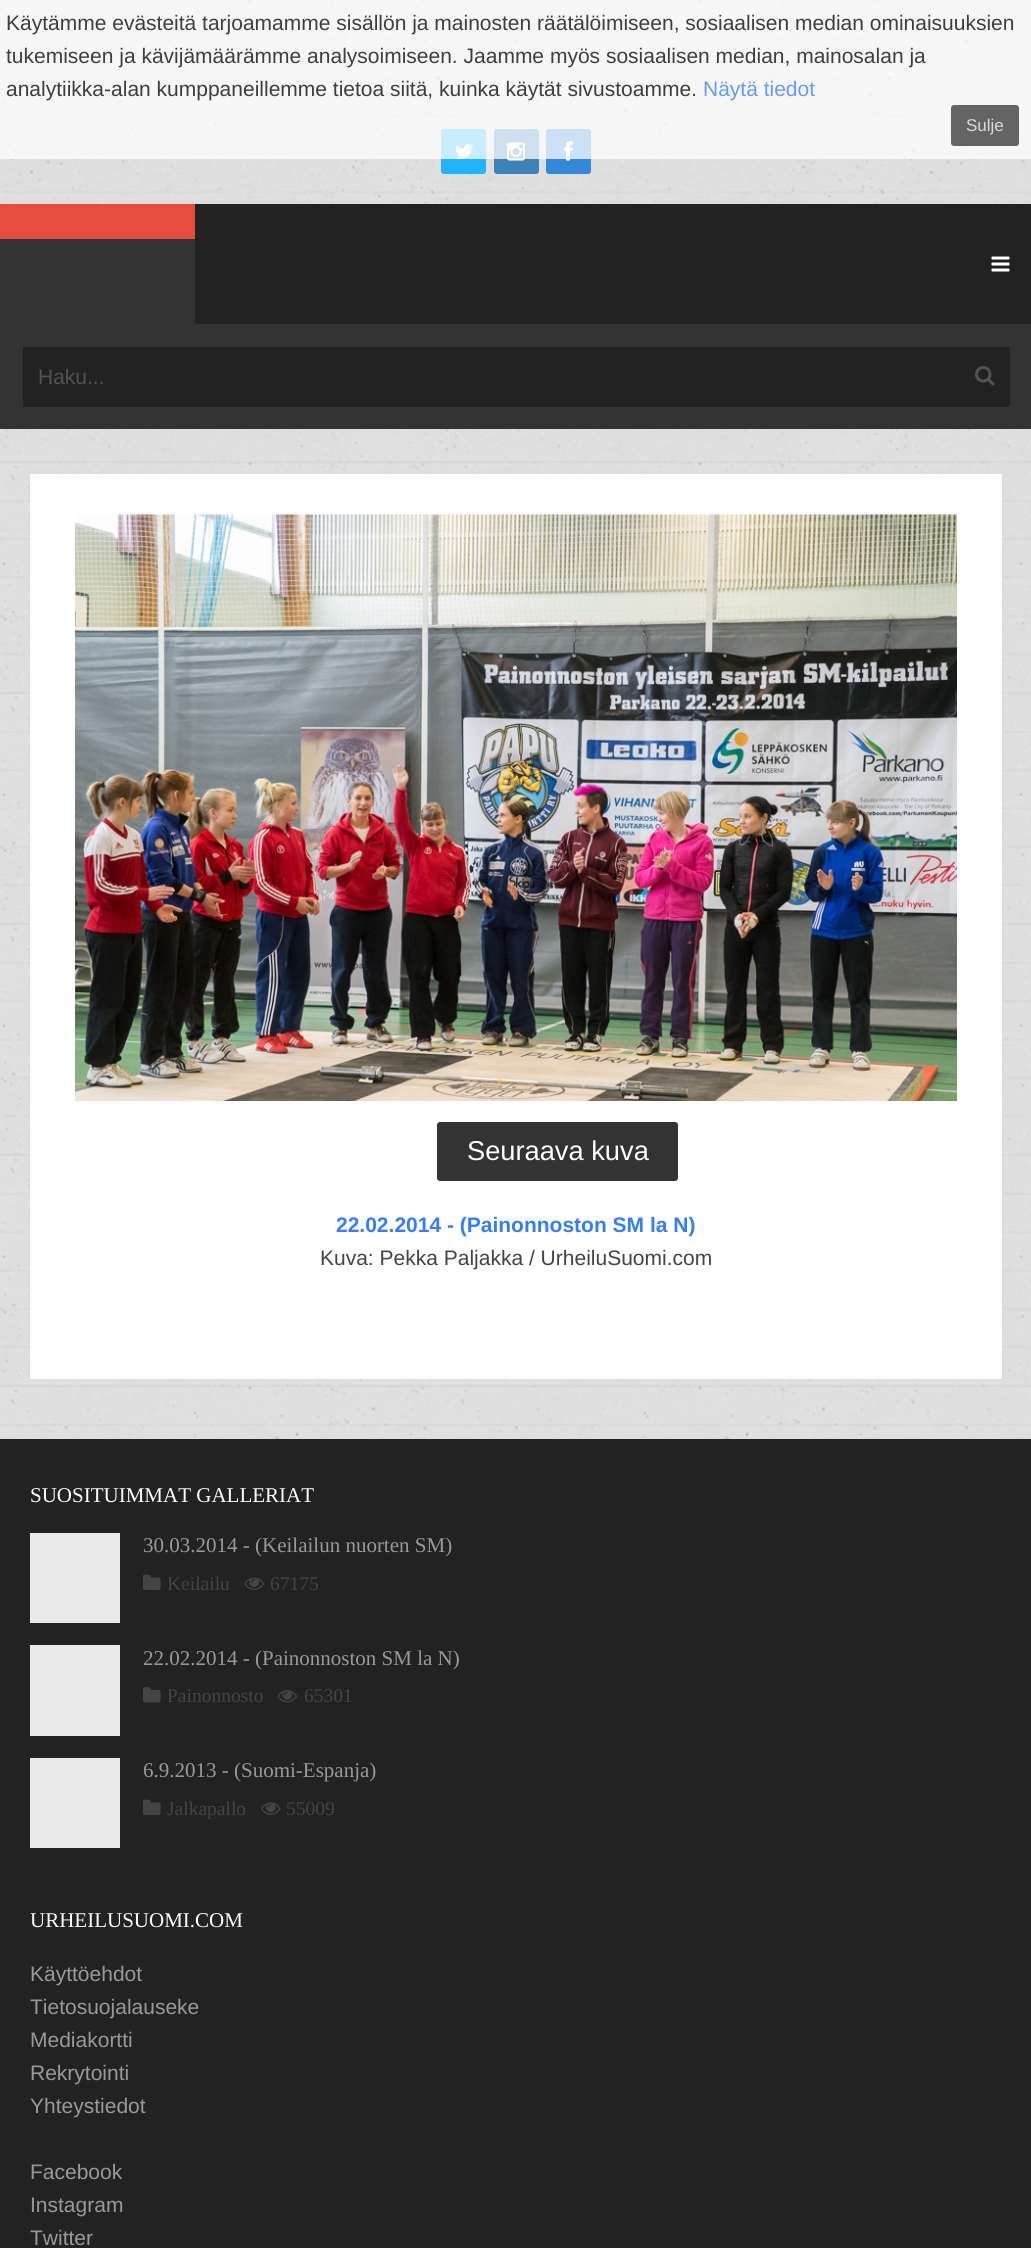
import math
import cairo

surface = cairo.ImageSurface(cairo.FORMAT_RGB24, 1031, 2248)
ctx = cairo.Context(surface)
options = cairo.FontOptions()
options.set_hint_metrics(cairo.HINT_METRICS_OFF)
options.set_hint_style(cairo.HINT_STYLE_NONE)
ctx.set_font_options(options)
ctx.set_miter_limit(4)


def round_rect(x, y, w, h, r):
    ctx.new_sub_path()
    for i, (u, v) in enumerate([(x + w - r, y + h - r), (x + r, y + h - r), (x + r, y + r), (x + w - r, y + r)]):
        ctx.arc(u, v, r, i * math.pi / 2, (i + 1) * math.pi / 2)
    ctx.close_path()


def picture(path, x, y, w, h):
    ctx.save()
    ctx.set_source_surface(cairo.ImageSurface.create_from_png(path), x, y)
    ctx.rectangle(x, y, w, h)
    ctx.fill()
    ctx.restore()


ctx.set_source_rgb(1, 1, 1)
ctx.paint()
picture("img1.png", 0, 0, 1031, 1439)
ctx.set_source_rgb(0.125, 0.714, 1)
round_rect(441, 129, 45, 45, 3)
ctx.fill()
picture("img2.png", 455, 144, 19, 15)
ctx.set_source_rgb(0.231, 0.51, 0.725)
round_rect(494, 129, 45, 45, 3)
ctx.fill()
picture("img3.png", 507, 142, 18, 19)
ctx.set_source_rgb(0.196, 0.537, 0.855)
round_rect(546, 129, 45, 45, 3)
ctx.fill()
picture("img4.png", 564, 141, 9, 20)
ctx.set_source_rgba(1, 1, 1, 0.75)
ctx.rectangle(0, 0, 1031, 159)
ctx.fill()
ctx.select_font_face("Liberation Sans")
ctx.set_font_size(21)
ctx.set_source_rgb(0.243, 0.243, 0.243)
ctx.move_to(6, 30)
ctx.show_text("Käytämme evästeitä tarjoamamme sisällön ja mainosten räätälöimiseen, sosiaalisen median ominaisuuksien")
ctx.move_to(6, 63)
ctx.show_text("tukemiseen ja kävijämäärämme analysoimiseen. Jaamme myös sosiaalisen median, mainosalan ja")
ctx.move_to(6, 96)
ctx.show_text("analytiikka-alan kumppaneillemme tietoa siitä, kuinka käytät sivustoamme.")
ctx.set_source_rgb(0.388, 0.612, 0.984)
ctx.move_to(703, 96)
ctx.show_text("Näytä tiedot")
ctx.set_source_rgba(0.2, 0.2, 0.2, 0.75)
round_rect(951, 105, 68, 41, 3)
ctx.fill()
ctx.set_font_size(17)
ctx.set_source_rgb(0.847, 0.847, 0.847)
ctx.move_to(966, 131)
ctx.show_text("Sulje")
ctx.set_source_rgb(0.2, 0.2, 0.2)
ctx.rectangle(0, 239, 1031, 190)
ctx.fill()
ctx.set_source_rgb(0.906, 0.298, 0.235)
ctx.rectangle(0, 204, 195, 35)
ctx.fill()
ctx.set_source_rgb(0.133, 0.133, 0.133)
ctx.rectangle(195, 204, 836, 120)
ctx.fill()
picture("img5.png", 991, 256, 19, 16)
ctx.rectangle(23, 347, 987, 60)
ctx.fill()
ctx.set_font_size(21)
ctx.set_source_rgb(0.322, 0.322, 0.322)
ctx.move_to(38, 384)
ctx.show_text("Haku...")
picture("img6.png", 975, 366, 20, 20)
ctx.set_source_rgb(1, 1, 1)
ctx.rectangle(30, 474, 972, 905)
ctx.fill()
picture("img7.png", 75, 514, 882, 587)
ctx.set_source_rgb(0.2, 0.2, 0.2)
round_rect(437, 1122, 241, 59, 3)
ctx.fill()
ctx.set_font_size(27.25)
ctx.set_source_rgb(1, 1, 1)
ctx.move_to(467, 1160)
ctx.show_text("Seuraava kuva")
ctx.select_font_face("Liberation Sans", cairo.FONT_SLANT_NORMAL, cairo.FONT_WEIGHT_BOLD)
ctx.set_font_size(21)
ctx.set_source_rgb(0.196, 0.494, 0.992)
ctx.move_to(336, 1232)
ctx.show_text("22.02.2014 - (Painonnoston SM la N)")
ctx.select_font_face("Liberation Sans")
ctx.set_source_rgb(0.267, 0.267, 0.267)
ctx.move_to(320, 1265)
ctx.show_text("Kuva: Pekka Paljakka / UrheiluSuomi.com")
ctx.set_source_rgb(0.133, 0.133, 0.133)
ctx.rectangle(0, 1439, 1031, 809)
ctx.fill()
ctx.select_font_face("Liberation Serif")
ctx.set_source_rgb(1, 1, 1)
ctx.move_to(30, 1502)
ctx.show_text("SUOSITUIMMAT GALLERIAT")
ctx.set_source_rgb(0.914, 0.914, 0.914)
ctx.rectangle(30, 1533, 90, 90)
ctx.fill()
ctx.set_source_rgb(0.6, 0.6, 0.6)
ctx.move_to(143, 1552)
ctx.show_text("30.03.2014 - (Keilailun nuorten SM)")
picture("img8.png", 143, 1574, 18, 16)
ctx.set_font_size(19.5)
ctx.set_source_rgb(0.267, 0.267, 0.267)
ctx.move_to(167, 1590)
ctx.show_text("Keilailu")
picture("img9.png", 244, 1577, 20, 13)
ctx.move_to(270, 1590)
ctx.show_text("67175")
ctx.set_source_rgb(0.914, 0.914, 0.914)
ctx.rectangle(30, 1645, 90, 91)
ctx.fill()
ctx.set_font_size(21)
ctx.set_source_rgb(0.6, 0.6, 0.6)
ctx.move_to(143, 1665)
ctx.show_text("22.02.2014 - (Painonnoston SM la N)")
picture("img10.png", 143, 1687, 18, 16)
ctx.set_font_size(19.5)
ctx.set_source_rgb(0.267, 0.267, 0.267)
ctx.move_to(167, 1702)
ctx.show_text("Painonnosto")
picture("img11.png", 277, 1690, 20, 13)
ctx.move_to(304, 1702)
ctx.show_text("65301")
ctx.set_source_rgb(0.914, 0.914, 0.914)
ctx.rectangle(30, 1758, 90, 90)
ctx.fill()
ctx.set_font_size(21)
ctx.set_source_rgb(0.6, 0.6, 0.6)
ctx.move_to(143, 1777)
ctx.show_text("6.9.2013 - (Suomi-Espanja)")
picture("img8.png", 143, 1799, 18, 16)
ctx.set_font_size(19.5)
ctx.set_source_rgb(0.267, 0.267, 0.267)
ctx.move_to(167, 1815)
ctx.show_text("Jalkapallo")
picture("img12.png", 261, 1802, 20, 13)
ctx.move_to(286, 1815)
ctx.show_text("55009")
ctx.set_font_size(21)
ctx.set_source_rgb(1, 1, 1)
ctx.move_to(30, 1927)
ctx.show_text("URHEILUSUOMI.COM")
ctx.select_font_face("Liberation Sans")
ctx.set_source_rgb(0.6, 0.6, 0.6)
ctx.move_to(30, 1981)
ctx.show_text("Käyttöehdot")
ctx.move_to(30, 2014)
ctx.show_text("Tietosuojalauseke")
ctx.move_to(30, 2047)
ctx.show_text("Mediakortti")
ctx.move_to(30, 2080)
ctx.show_text("Rekrytointi")
ctx.move_to(30, 2113)
ctx.show_text("Yhteystiedot")
ctx.move_to(30, 2179)
ctx.show_text("Facebook")
ctx.move_to(30, 2212)
ctx.show_text("Instagram")
ctx.move_to(30, 2245)
ctx.show_text("Twitter")
surface.write_to_png("page.png")
